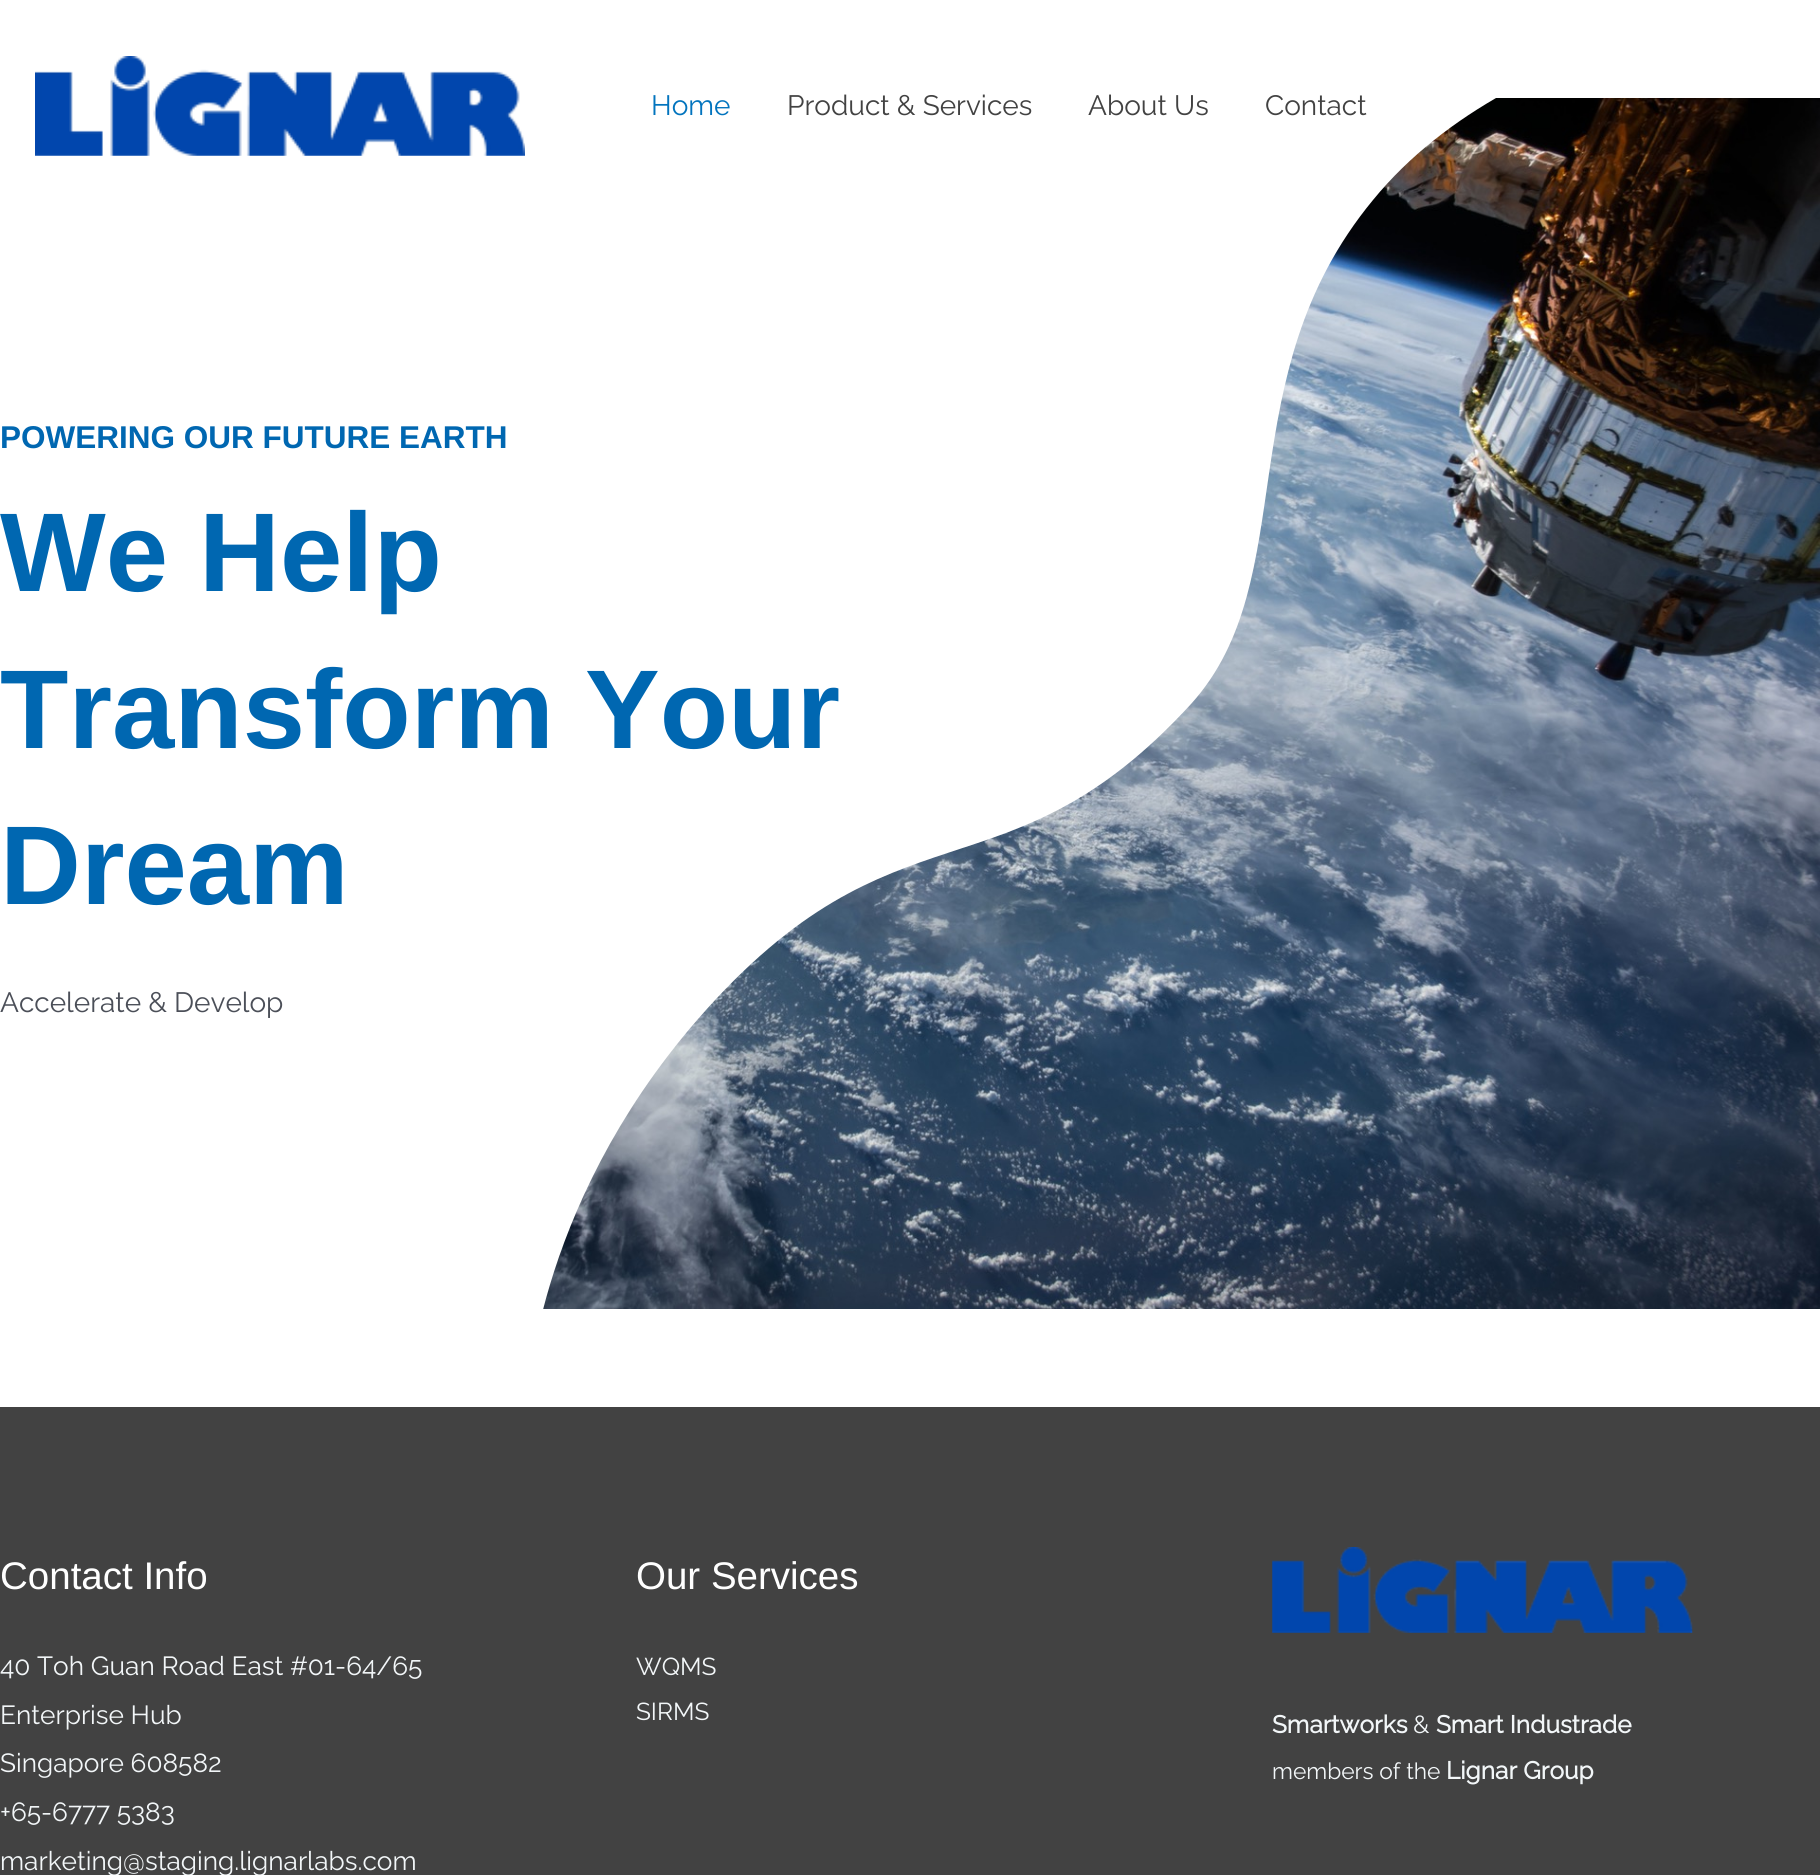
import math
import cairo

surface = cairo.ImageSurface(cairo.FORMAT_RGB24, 1820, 1875)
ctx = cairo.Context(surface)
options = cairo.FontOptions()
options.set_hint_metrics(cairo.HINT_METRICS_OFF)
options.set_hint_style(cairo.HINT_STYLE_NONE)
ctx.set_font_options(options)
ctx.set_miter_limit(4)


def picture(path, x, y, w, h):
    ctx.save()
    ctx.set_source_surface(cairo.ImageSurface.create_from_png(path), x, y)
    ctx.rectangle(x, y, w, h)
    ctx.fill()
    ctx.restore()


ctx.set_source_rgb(1, 1, 1)
ctx.paint()
picture("img2.png", 543, 98, 1277, 1211)
ctx.set_source_rgb(1, 1, 1)
ctx.set_fill_rule(cairo.FILL_RULE_EVEN_ODD)
ctx.new_path()
ctx.move_to(1820, 0)
ctx.curve_to(1820, 0, 1519, 21, 1373, 200)
ctx.curve_to(1226, 378, 1304, 579, 1191, 704)
ctx.curve_to(1004, 908, 897, 791, 698, 1019)
ctx.curve_to(531, 1211, 527, 1407, 527, 1407)
ctx.line_to(-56, 1407)
ctx.line_to(-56, 0)
ctx.close_path()
ctx.fill()
picture("img1.png", 35, 56, 490, 100)
ctx.select_font_face("Raleway Thin")
ctx.set_font_size(28)
ctx.set_source_rgb(0.008, 0.455, 0.745)
ctx.move_to(651, 115)
ctx.show_text("Home")
ctx.set_source_rgb(0.259, 0.259, 0.259)
ctx.move_to(787, 115)
ctx.show_text("Product & Services")
ctx.move_to(1088, 115)
ctx.show_text("About Us")
ctx.move_to(1265, 115)
ctx.show_text("Contact")
ctx.select_font_face("Liberation Sans", cairo.FONT_SLANT_NORMAL, cairo.FONT_WEIGHT_BOLD)
ctx.set_font_size(31.5)
ctx.set_source_rgb(0, 0.404, 0.694)
ctx.move_to(0, 448)
ctx.show_text("POWERING OUR FUTURE EARTH")
ctx.set_font_size(112)
ctx.move_to(0, 591)
ctx.show_text("We Help")
ctx.move_to(0, 748)
ctx.show_text("Transform Your")
ctx.move_to(0, 904)
ctx.show_text("Dream")
ctx.select_font_face("Raleway Thin")
ctx.set_font_size(28)
ctx.set_source_rgb(0.294, 0.31, 0.345)
ctx.move_to(0, 1012)
ctx.show_text("Accelerate & Develop")
ctx.set_source_rgb(0.259, 0.259, 0.259)
ctx.rectangle(0, 1407, 1820, 468)
ctx.fill()
ctx.select_font_face("Liberation Sans")
ctx.set_font_size(38.5)
ctx.set_source_rgb(1, 1, 1)
ctx.move_to(0, 1589)
ctx.show_text("Contact Info")
ctx.select_font_face("Raleway Thin")
ctx.set_font_size(26.25)
ctx.set_source_rgb(0.949, 0.961, 0.969)
ctx.move_to(0, 1675)
ctx.show_text("40 Toh Guan Road East #01-64/65")
ctx.move_to(0, 1724)
ctx.show_text("Enterprise Hub")
ctx.move_to(0, 1772)
ctx.show_text("Singapore 608582")
ctx.move_to(0, 1821)
ctx.show_text("+65-6777 5383")
ctx.move_to(0, 1870)
ctx.show_text("marketing@staging.lignarlabs.com")
ctx.select_font_face("Liberation Sans")
ctx.set_font_size(38.5)
ctx.set_source_rgb(1, 1, 1)
ctx.move_to(636, 1589)
ctx.show_text("Our Services")
ctx.select_font_face("Raleway Thin")
ctx.set_font_size(24.5)
ctx.set_source_rgb(0.949, 0.961, 0.969)
ctx.move_to(636, 1675)
ctx.show_text("WQMS")
ctx.move_to(636, 1720)
ctx.show_text("SIRMS")
picture("img3.png", 1272, 1547, 421, 86)
ctx.select_font_face("Raleway", cairo.FONT_SLANT_NORMAL, cairo.FONT_WEIGHT_BOLD)
ctx.move_to(1272, 1733)
ctx.show_text("Smartworks")
ctx.select_font_face("Raleway Thin")
ctx.move_to(1413, 1733)
ctx.show_text("&")
ctx.select_font_face("Raleway", cairo.FONT_SLANT_NORMAL, cairo.FONT_WEIGHT_BOLD)
ctx.move_to(1436, 1733)
ctx.show_text("Smart Industrade")
ctx.select_font_face("Raleway Thin")
ctx.set_font_size(22.75)
ctx.move_to(1272, 1779)
ctx.show_text("members of the")
ctx.select_font_face("Raleway", cairo.FONT_SLANT_NORMAL, cairo.FONT_WEIGHT_BOLD)
ctx.set_font_size(24.5)
ctx.move_to(1446, 1779)
ctx.show_text("Lignar Group")
surface.write_to_png("page.png")
